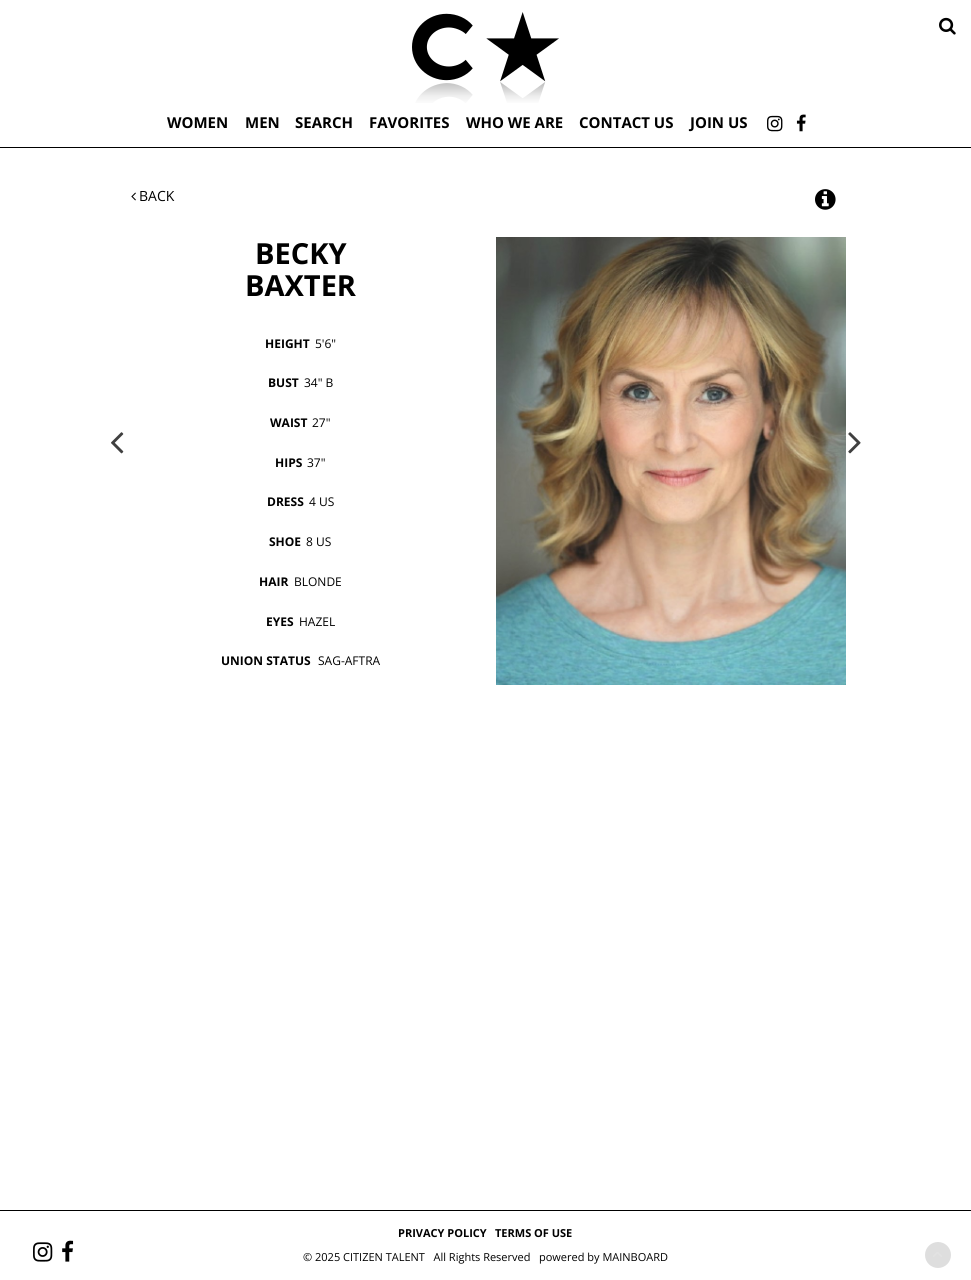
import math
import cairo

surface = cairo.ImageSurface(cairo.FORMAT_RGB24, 971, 1280)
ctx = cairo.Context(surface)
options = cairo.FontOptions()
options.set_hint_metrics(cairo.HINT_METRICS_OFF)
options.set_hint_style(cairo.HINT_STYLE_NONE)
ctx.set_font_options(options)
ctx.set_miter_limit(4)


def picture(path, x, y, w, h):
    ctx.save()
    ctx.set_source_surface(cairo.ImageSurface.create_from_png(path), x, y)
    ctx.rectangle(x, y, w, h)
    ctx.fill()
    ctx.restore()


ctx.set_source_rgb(1, 1, 1)
ctx.paint()
ctx.set_source_rgb(0, 0, 0)
ctx.rectangle(0, 147, 971, 1)
ctx.fill()
picture("img1.png", 412, 12, 147, 91)
picture("img2.png", 939, 17, 17, 18)
ctx.select_font_face("Open Sans", cairo.FONT_SLANT_NORMAL, cairo.FONT_WEIGHT_BOLD)
ctx.set_font_size(15)
ctx.move_to(167, 128)
ctx.show_text("WOMEN")
ctx.move_to(245, 128)
ctx.show_text("MEN")
ctx.move_to(295, 128)
ctx.show_text("SEARCH")
ctx.move_to(369, 128)
ctx.show_text("FAVORITES")
ctx.move_to(466, 128)
ctx.show_text("WHO WE ARE")
ctx.move_to(579, 128)
ctx.show_text("CONTACT US")
ctx.move_to(690, 128)
ctx.show_text("JOIN US")
picture("img3.png", 767, 115, 16, 17)
picture("img4.png", 796, 114, 10, 18)
picture("img5.png", 131, 192, 5, 9)
ctx.select_font_face("Open Sans")
ctx.set_font_size(14)
ctx.move_to(139, 201)
ctx.show_text("BACK")
picture("img6.png", 815, 189, 21, 21)
picture("img7.png", 111, 432, 13, 22)
ctx.select_font_face("Open Sans", cairo.FONT_SLANT_NORMAL, cairo.FONT_WEIGHT_BOLD)
ctx.set_font_size(29)
ctx.move_to(255, 264)
ctx.show_text("BECKY")
ctx.move_to(245, 296)
ctx.show_text("BAXTER")
ctx.set_font_size(12)
ctx.move_to(265, 348)
ctx.show_text("HEIGHT")
ctx.select_font_face("Open Sans")
ctx.move_to(315, 348)
ctx.show_text("5'6\"")
ctx.select_font_face("Open Sans", cairo.FONT_SLANT_NORMAL, cairo.FONT_WEIGHT_BOLD)
ctx.move_to(268, 387)
ctx.show_text("BUST")
ctx.select_font_face("Open Sans")
ctx.move_to(304, 387)
ctx.show_text("34\" B")
ctx.select_font_face("Open Sans", cairo.FONT_SLANT_NORMAL, cairo.FONT_WEIGHT_BOLD)
ctx.move_to(270, 427)
ctx.show_text("WAIST")
ctx.select_font_face("Open Sans")
ctx.move_to(312, 427)
ctx.show_text("27\"")
ctx.select_font_face("Open Sans", cairo.FONT_SLANT_NORMAL, cairo.FONT_WEIGHT_BOLD)
ctx.move_to(275, 467)
ctx.show_text("HIPS")
ctx.select_font_face("Open Sans")
ctx.move_to(307, 467)
ctx.show_text("37\"")
ctx.select_font_face("Open Sans", cairo.FONT_SLANT_NORMAL, cairo.FONT_WEIGHT_BOLD)
ctx.move_to(267, 506)
ctx.show_text("DRESS")
ctx.select_font_face("Open Sans")
ctx.move_to(309, 506)
ctx.show_text("4 US")
ctx.select_font_face("Open Sans", cairo.FONT_SLANT_NORMAL, cairo.FONT_WEIGHT_BOLD)
ctx.move_to(269, 546)
ctx.show_text("SHOE")
ctx.select_font_face("Open Sans")
ctx.move_to(306, 546)
ctx.show_text("8 US")
ctx.select_font_face("Open Sans", cairo.FONT_SLANT_NORMAL, cairo.FONT_WEIGHT_BOLD)
ctx.move_to(259, 586)
ctx.show_text("HAIR")
ctx.select_font_face("Open Sans")
ctx.move_to(294, 586)
ctx.show_text("BLONDE")
ctx.select_font_face("Open Sans", cairo.FONT_SLANT_NORMAL, cairo.FONT_WEIGHT_BOLD)
ctx.move_to(266, 626)
ctx.show_text("EYES")
ctx.select_font_face("Open Sans")
ctx.move_to(299, 626)
ctx.show_text("HAZEL")
ctx.select_font_face("Open Sans", cairo.FONT_SLANT_NORMAL, cairo.FONT_WEIGHT_BOLD)
ctx.move_to(221, 665)
ctx.show_text("UNION STATUS")
ctx.select_font_face("Open Sans")
ctx.move_to(318, 665)
ctx.show_text("SAG-AFTRA")
picture("img8.png", 496, 237, 350, 448)
picture("img9.png", 848, 432, 13, 22)
ctx.rectangle(0, 1210, 971, 1)
ctx.fill()
ctx.select_font_face("Open Sans", cairo.FONT_SLANT_NORMAL, cairo.FONT_WEIGHT_BOLD)
ctx.set_font_size(11)
ctx.move_to(398, 1237)
ctx.show_text("PRIVACY POLICY")
ctx.move_to(495, 1237)
ctx.show_text("TERMS OF USE")
picture("img10.png", 33, 1242, 20, 20)
picture("img11.png", 62, 1240, 12, 22)
ctx.select_font_face("Open Sans")
ctx.move_to(303, 1261)
ctx.show_text("© 2025 CITIZEN TALENT   All Rights Reserved")
ctx.move_to(539, 1261)
ctx.show_text("powered by MAINBOARD")
ctx.set_source_rgb(0.871, 0.871, 0.871)
ctx.new_path()
ctx.arc(938, 1255, 13, 0, 2 * math.pi)
ctx.fill()
picture("img12.png", 933, 1252, 9, 5)
surface.write_to_png("page.png")
